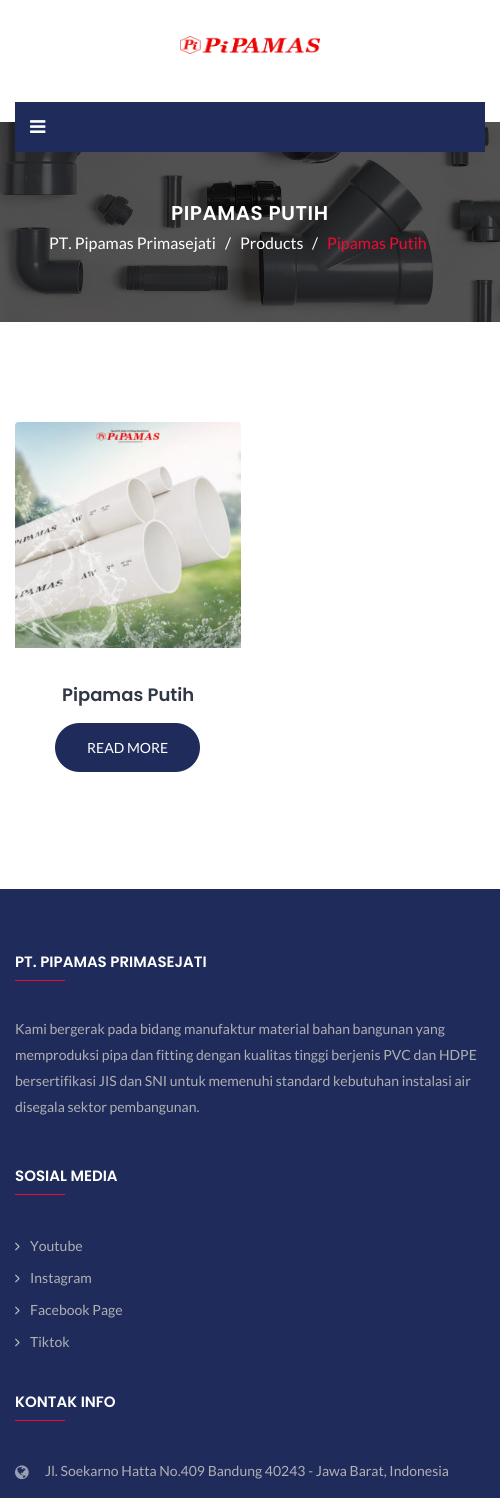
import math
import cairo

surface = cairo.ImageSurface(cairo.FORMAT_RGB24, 500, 1498)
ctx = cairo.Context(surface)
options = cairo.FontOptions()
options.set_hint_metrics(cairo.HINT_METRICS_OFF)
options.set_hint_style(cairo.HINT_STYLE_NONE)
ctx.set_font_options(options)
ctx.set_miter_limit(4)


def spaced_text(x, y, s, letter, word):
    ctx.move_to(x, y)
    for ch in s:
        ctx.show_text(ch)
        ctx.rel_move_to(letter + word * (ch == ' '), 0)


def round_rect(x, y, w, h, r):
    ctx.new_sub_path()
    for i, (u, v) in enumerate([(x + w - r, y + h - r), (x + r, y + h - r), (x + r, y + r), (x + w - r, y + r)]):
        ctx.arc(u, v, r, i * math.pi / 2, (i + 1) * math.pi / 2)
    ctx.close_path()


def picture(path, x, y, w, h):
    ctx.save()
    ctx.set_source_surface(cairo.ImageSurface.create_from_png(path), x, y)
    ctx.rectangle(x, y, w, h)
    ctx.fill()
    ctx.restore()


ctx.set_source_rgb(1, 1, 1)
ctx.paint()
picture("img1.png", 180, 36, 140, 18)
picture("img3.png", 0, 122, 500, 200)
ctx.set_source_rgb(0.122, 0.169, 0.357)
ctx.rectangle(15, 102, 470, 50)
ctx.fill()
picture("img2.png", 30, 120, 16, 13)
ctx.select_font_face("Poppins SemiBold")
ctx.set_font_size(20)
ctx.set_source_rgb(1, 1, 1)
spaced_text(171, 220, "PIPAMAS PUTIH", 0.5, 0)
ctx.select_font_face("Lato")
ctx.set_font_size(16)
ctx.move_to(49, 249)
ctx.show_text("PT. Pipamas Primasejati")
ctx.move_to(225, 249)
ctx.show_text("/")
ctx.move_to(240, 249)
ctx.show_text("Products")
ctx.move_to(312, 249)
ctx.show_text("/")
ctx.set_source_rgb(0.929, 0.043, 0.192)
ctx.move_to(327, 249)
ctx.show_text("Pipamas Putih")
picture("img4.png", 15, 422, 226, 226)
ctx.select_font_face("Poppins SemiBold")
ctx.set_font_size(18)
ctx.set_source_rgb(0.188, 0.216, 0.271)
ctx.move_to(62, 701)
ctx.show_text("Pipamas Putih")
ctx.set_source_rgb(0.122, 0.169, 0.357)
round_rect(56, 724, 143, 47, 23.5)
ctx.fill_preserve()
ctx.stroke()
ctx.select_font_face("Lato")
ctx.set_font_size(14)
ctx.set_source_rgb(1, 1, 1)
ctx.move_to(87, 753)
ctx.show_text("READ MORE")
ctx.set_source_rgb(0.122, 0.169, 0.357)
ctx.rectangle(0, 889, 500, 609)
ctx.fill()
ctx.select_font_face("Poppins SemiBold")
ctx.set_font_size(15)
ctx.set_source_rgb(1, 1, 1)
ctx.move_to(15, 967)
ctx.show_text("PT. PIPAMAS PRIMASEJATI")
ctx.set_source_rgb(0.929, 0.043, 0.192)
ctx.rectangle(15, 980, 50, 1)
ctx.fill()
ctx.select_font_face("Lato")
ctx.set_font_size(14)
ctx.set_source_rgb(0.686, 0.69, 0.698)
ctx.move_to(15, 1034)
ctx.show_text("Kami bergerak pada bidang manufaktur material bahan bangunan yang")
ctx.move_to(15, 1060)
ctx.show_text("memproduksi pipa dan fitting dengan kualitas tinggi berjenis PVC dan HDPE")
ctx.move_to(15, 1086)
ctx.show_text("bersertifikasi JIS dan SNI untuk memenuhi standard kebutuhan instalasi air")
ctx.move_to(15, 1112)
ctx.show_text("disegala sektor pembangunan.")
ctx.select_font_face("Poppins SemiBold")
ctx.set_font_size(15)
ctx.set_source_rgb(1, 1, 1)
ctx.move_to(15, 1181)
ctx.show_text("SOSIAL MEDIA")
ctx.set_source_rgb(0.929, 0.043, 0.192)
ctx.rectangle(15, 1194, 50, 1)
ctx.fill()
picture("img5.png", 15, 1242, 5, 9)
ctx.select_font_face("Lato")
ctx.set_font_size(14)
ctx.set_source_rgb(0.686, 0.69, 0.698)
ctx.move_to(30, 1251)
ctx.show_text("Youtube")
picture("img5.png", 15, 1274, 5, 9)
ctx.move_to(30, 1283)
ctx.show_text("Instagram")
picture("img5.png", 15, 1306, 5, 9)
ctx.move_to(30, 1315)
ctx.show_text("Facebook Page")
picture("img5.png", 15, 1338, 5, 9)
ctx.move_to(30, 1347)
ctx.show_text("Tiktok")
ctx.select_font_face("Poppins SemiBold")
ctx.set_font_size(15)
ctx.set_source_rgb(1, 1, 1)
ctx.move_to(15, 1407)
ctx.show_text("KONTAK INFO")
ctx.set_source_rgb(0.929, 0.043, 0.192)
ctx.rectangle(15, 1420, 50, 1)
ctx.fill()
picture("img6.png", 15, 1465, 14, 15)
ctx.select_font_face("Lato")
ctx.set_font_size(14)
ctx.set_source_rgb(0.686, 0.69, 0.698)
ctx.move_to(45, 1476)
ctx.show_text("Jl. Soekarno Hatta No.409 Bandung 40243 - Jawa Barat, Indonesia")
surface.write_to_png("page.png")
